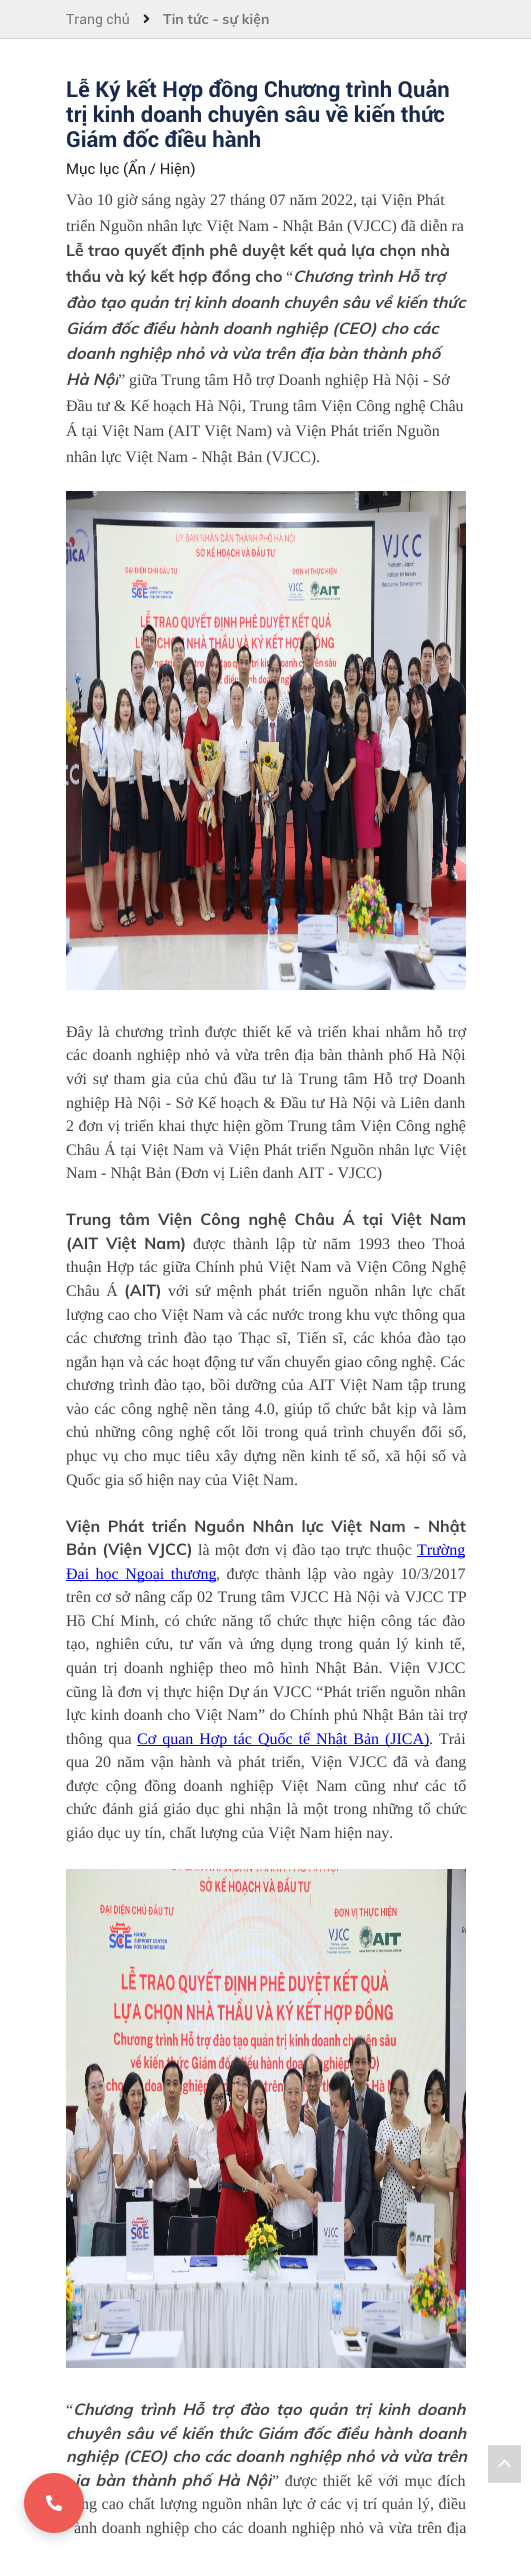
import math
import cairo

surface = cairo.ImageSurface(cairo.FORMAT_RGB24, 531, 2553)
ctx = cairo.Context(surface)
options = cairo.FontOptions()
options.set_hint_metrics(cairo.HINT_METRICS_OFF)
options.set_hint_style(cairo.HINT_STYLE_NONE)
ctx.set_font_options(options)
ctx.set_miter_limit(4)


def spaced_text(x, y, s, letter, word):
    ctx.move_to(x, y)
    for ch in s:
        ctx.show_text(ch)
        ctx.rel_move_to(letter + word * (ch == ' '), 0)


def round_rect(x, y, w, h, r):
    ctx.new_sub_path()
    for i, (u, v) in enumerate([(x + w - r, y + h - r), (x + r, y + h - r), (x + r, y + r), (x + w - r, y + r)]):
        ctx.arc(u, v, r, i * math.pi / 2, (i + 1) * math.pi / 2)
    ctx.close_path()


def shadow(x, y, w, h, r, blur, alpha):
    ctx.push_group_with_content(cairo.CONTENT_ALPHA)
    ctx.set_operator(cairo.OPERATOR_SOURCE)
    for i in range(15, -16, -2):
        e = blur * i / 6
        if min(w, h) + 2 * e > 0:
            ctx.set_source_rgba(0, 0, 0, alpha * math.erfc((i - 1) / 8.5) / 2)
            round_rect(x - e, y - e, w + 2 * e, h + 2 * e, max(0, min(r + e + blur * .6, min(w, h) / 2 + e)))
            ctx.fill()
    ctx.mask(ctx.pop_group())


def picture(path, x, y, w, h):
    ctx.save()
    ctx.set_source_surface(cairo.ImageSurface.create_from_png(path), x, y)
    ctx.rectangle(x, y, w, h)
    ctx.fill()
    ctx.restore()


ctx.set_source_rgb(1, 1, 1)
ctx.paint()
ctx.set_source_rgb(0.937, 0.937, 0.941)
ctx.rectangle(0, 0, 531, 38)
ctx.fill()
ctx.set_source_rgb(0.82, 0.82, 0.82)
ctx.rectangle(0, 38, 531, 1)
ctx.fill()
ctx.select_font_face("Roboto")
ctx.set_font_size(14)
ctx.set_source_rgb(0.463, 0.463, 0.471)
ctx.move_to(66, 24)
ctx.show_text("Trang chủ")
picture("img1.png", 143, 14, 7, 10)
ctx.select_font_face("Muli", cairo.FONT_SLANT_NORMAL, cairo.FONT_WEIGHT_BOLD)
ctx.move_to(163, 24)
ctx.show_text("Tin tức - sự kiện")
ctx.set_source_rgb(0, 0, 0)
shadow(24, 2477, 60, 60, 30, 6, 0.15)
ctx.select_font_face("Muli", cairo.FONT_SLANT_ITALIC, cairo.FONT_WEIGHT_BOLD)
ctx.set_font_size(16)
ctx.set_source_rgb(0.255, 0.251, 0.259)
spaced_text(75, 2486, "ịa bàn thành phố Hà Nội", 0, 1.75)
ctx.select_font_face("Liberation Serif")
spaced_text(81, 2509, "ng cao chất lượng nguồn nhân lực ở các vị trí quản lý, điều", 0, 0.6)
spaced_text(74, 2533, "ành doanh nghiệp cho các doanh nghiệp nhỏ và vừa trên địa", 0, 0.75)
ctx.set_source_rgb(0.945, 0.357, 0.333)
ctx.new_path()
ctx.arc(54, 2503, 30, 0, 2 * math.pi)
ctx.fill()
picture("img2.png", 46, 2495, 16, 16)
ctx.select_font_face("Roboto", cairo.FONT_SLANT_NORMAL, cairo.FONT_WEIGHT_BOLD)
ctx.set_font_size(22)
ctx.set_source_rgb(0.098, 0.169, 0.302)
ctx.move_to(66, 97)
ctx.show_text("Lễ Ký kết Hợp đồng Chương trình Quản")
ctx.move_to(66, 122)
ctx.show_text("trị kinh doanh chuyên sâu về kiến thức")
ctx.move_to(66, 147)
ctx.show_text("Giám đốc điều hành")
ctx.select_font_face("Roboto")
ctx.set_font_size(15)
ctx.set_source_rgb(0.133, 0.133, 0.133)
ctx.move_to(66, 174)
ctx.show_text("Mục lục (Ẩn / Hiện)")
ctx.select_font_face("Liberation Serif")
ctx.set_font_size(16)
ctx.set_source_rgb(0.255, 0.251, 0.259)
ctx.move_to(66, 205)
ctx.show_text("Vào 10 giờ sáng ngày 27 tháng 07 năm 2022, tại Viện Phát")
ctx.move_to(66, 231)
ctx.show_text("triển Nguồn nhân lực Việt Nam - Nhật Bản (VJCC) đã diễn ra")
ctx.select_font_face("Muli", cairo.FONT_SLANT_NORMAL, cairo.FONT_WEIGHT_BOLD)
ctx.move_to(66, 256)
ctx.show_text("Lễ trao quyết định phê duyệt kết quả lựa chọn nhà")
ctx.move_to(66, 282)
ctx.show_text("thầu và ký kết hợp đồng cho")
ctx.select_font_face("Liberation Serif")
ctx.move_to(286, 282)
ctx.show_text("“")
ctx.select_font_face("Muli", cairo.FONT_SLANT_ITALIC, cairo.FONT_WEIGHT_BOLD)
ctx.move_to(293, 282)
ctx.show_text("Chương trình Hỗ trợ")
ctx.move_to(66, 308)
ctx.show_text("đào tạo quản trị kinh doanh chuyên sâu về kiến thức")
ctx.move_to(66, 334)
ctx.show_text("Giám đốc điều hành doanh nghiệp (CEO) cho các")
ctx.move_to(66, 359)
ctx.show_text("doanh nghiệp nhỏ và vừa trên địa bàn thành phố")
ctx.move_to(66, 385)
ctx.show_text("Hà Nội")
ctx.set_source_rgb(1, 1, 1)
ctx.rectangle(118, 373, 2, 7)
ctx.fill()
ctx.select_font_face("Liberation Serif")
ctx.set_source_rgb(0.255, 0.251, 0.259)
ctx.move_to(118, 385)
ctx.show_text("” giữa Trung tâm Hỗ trợ Doanh nghiệp Hà Nội - Sở")
ctx.move_to(66, 411)
ctx.show_text("Đầu tư & Kế hoạch Hà Nội, Trung tâm Viện Công nghệ Châu")
ctx.move_to(66, 436)
ctx.show_text("Á tại Việt Nam (AIT Việt Nam) và Viện Phát triển Nguồn")
ctx.move_to(66, 462)
ctx.show_text("nhân lực Việt Nam - Nhật Bản (VJCC).")
picture("img3.png", 66, 491, 400, 499)
spaced_text(66, 1037, "Đây là chương trình được thiết kế và triển khai nhằm hỗ trợ", 0, 1.5)
spaced_text(66, 1060, "các doanh nghiệp nhỏ và vừa trên địa bàn thành phố Hà Nội", 0, 1.25)
spaced_text(66, 1084, "với sự tham gia của chủ đầu tư là Trung tâm Hỗ trợ Doanh", 0, 1.8)
spaced_text(66, 1108, "nghiệp Hà Nội - Sở Kế hoạch & Đầu tư Hà Nội và Liên danh", 0, 0.5)
spaced_text(66, 1131, "2 đơn vị triển khai thực hiện gồm Trung tâm Viện Công nghệ", 0, 0.5)
spaced_text(66, 1155, "Châu Á tại Việt Nam và Viện Phát triển Nguồn nhân lực Việt", 0, 0.5)
ctx.move_to(66, 1178)
ctx.show_text("Nam - Nhật Bản (Đơn vị Liên danh AIT - VJCC)")
ctx.select_font_face("Muli", cairo.FONT_SLANT_NORMAL, cairo.FONT_WEIGHT_BOLD)
spaced_text(66, 1225, "Trung tâm Viện Công nghệ Châu Á tại Việt Nam", 0, 3.75)
spaced_text(66, 1249, "(AIT Việt Nam)", 0, 3.4)
ctx.select_font_face("Liberation Serif")
spaced_text(193, 1249, "được thành lập từ năm 1993 theo Thoả", 0, 3.4)
spaced_text(66, 1272, "thuận Hợp tác giữa Chính phủ Việt Nam và Viện Công Nghệ", 0, 0.75)
spaced_text(66, 1296, "Châu Á", 0, 2.4)
ctx.select_font_face("Muli", cairo.FONT_SLANT_NORMAL, cairo.FONT_WEIGHT_BOLD)
ctx.move_to(124, 1296)
ctx.show_text("(AIT)")
ctx.select_font_face("Liberation Serif")
spaced_text(168, 1296, "với sứ mệnh phát triển nguồn nhân lực chất", 0, 2.4)
ctx.move_to(66, 1320)
ctx.show_text("lượng cao cho Việt Nam và các nước trong khu vực thông qua")
spaced_text(66, 1343, "các chương trình đào tạo Thạc sĩ, Tiến sĩ, các khóa đào tạo", 0, 2)
ctx.move_to(66, 1367)
ctx.show_text("ngắn hạn và các hoạt động tư vấn chuyển giao công nghệ. Các")
spaced_text(66, 1390, "chương trình đào tạo, bồi dưỡng của AIT Việt Nam tập trung", 0, 0.75)
spaced_text(66, 1414, "vào các công nghệ nền tảng 4.0, giúp tổ chức bắt kịp và làm", 0, 1.25)
spaced_text(66, 1437, "chủ những công nghệ cốt lõi trong quá trình chuyển đổi số,", 0, 2)
spaced_text(66, 1461, "phục vụ cho mục tiêu xây dựng nền kinh tế số, xã hội số và", 0, 1.5)
ctx.move_to(66, 1485)
ctx.show_text("Quốc gia số hiện nay của Việt Nam.")
ctx.select_font_face("Muli", cairo.FONT_SLANT_NORMAL, cairo.FONT_WEIGHT_BOLD)
spaced_text(66, 1532, "Viện Phát triển Nguồn Nhân lực Việt Nam - Nhật", 0, 3.25)
spaced_text(66, 1555, "Bản (Viện VJCC)", 0, 1.25)
ctx.select_font_face("Liberation Serif")
spaced_text(198, 1555, "là một đơn vị đào tạo trực thuộc", 0, 1.25)
ctx.set_source_rgb(0, 0, 1)
ctx.rectangle(417, 1556, 48, 1)
ctx.fill()
ctx.move_to(417, 1555)
ctx.show_text("Trường")
ctx.rectangle(66, 1580, 150, 1)
ctx.fill()
spaced_text(66, 1579, "Đại học Ngoại thương", 0, 2.5)
ctx.set_source_rgb(0.255, 0.251, 0.259)
spaced_text(216, 1579, ", được thành lập vào ngày 10/3/2017", 0, 2.5)
spaced_text(66, 1602, "trên cơ sở nâng cấp 02 Trung tâm VJCC Hà Nội và VJCC TP", 0, 0.5)
spaced_text(66, 1626, "Hồ Chí Minh, có chức năng tổ chức thực hiện công tác đào", 0, 1.75)
spaced_text(66, 1649, "tạo, nghiên cứu, tư vấn và ứng dụng trong quản lý kinh tế,", 0, 2.25)
spaced_text(66, 1673, "quản trị doanh nghiệp theo mô hình Nhật Bản. Viện VJCC", 0, 2.4)
spaced_text(66, 1697, "cũng là đơn vị thực hiện Dự án VJCC “Phát triển nguồn nhân", 0, 0.5)
spaced_text(66, 1720, "lực kinh doanh cho Việt Nam” do Chính phủ Nhật Bản tài trợ", 0, 0.5)
spaced_text(66, 1744, "thông qua", 0, 2)
ctx.set_source_rgb(0, 0, 1)
ctx.rectangle(137, 1745, 292, 1)
ctx.fill()
spaced_text(137, 1744, "Cơ quan Hợp tác Quốc tế Nhật Bản (JICA)", 0, 2)
ctx.set_source_rgb(0.255, 0.251, 0.259)
spaced_text(429, 1744, ". Trải", 0, 2)
spaced_text(66, 1767, "qua 20 năm vận hành và phát triển, Viện VJCC đã và đang", 0, 2)
spaced_text(66, 1791, "được cộng đồng doanh nghiệp Việt Nam cũng như các tổ", 0, 3.4)
spaced_text(66, 1814, "chức đánh giá giáo dục ghi nhận là một trong những tổ chức", 0, 1.25)
ctx.move_to(66, 1838)
ctx.show_text("giáo dục uy tín, chất lượng của Việt Nam hiện nay.")
picture("img4.png", 66, 1869, 400, 499)
ctx.move_to(66, 2415)
ctx.show_text("“")
ctx.select_font_face("Muli", cairo.FONT_SLANT_ITALIC, cairo.FONT_WEIGHT_BOLD)
spaced_text(73, 2415, "Chương trình Hỗ trợ đào", 0, 2.5)
spaced_text(276, 2415, "tạo quản trị kinh doanh", 0, 2.5)
spaced_text(66, 2439, "chuyên sâu về kiến thức Giám đốc điều hành doanh", 0, 1)
spaced_text(66, 2462, "nghiệp (CEO) cho các doanh nghiệp nhỏ và vừa trên", 0, 0.5)
ctx.set_source_rgb(1, 1, 1)
ctx.rectangle(272, 2474, 2, 7)
ctx.fill()
ctx.select_font_face("Liberation Serif")
ctx.set_source_rgb(0.255, 0.251, 0.259)
spaced_text(272, 2486, "” được thiết kế với mục đích", 0, 1.75)
ctx.set_source_rgb(0.839, 0.839, 0.839)
ctx.rectangle(488, 2445, 33, 38)
ctx.fill()
picture("img5.png", 498, 2459, 13, 9)
surface.write_to_png("page.png")
